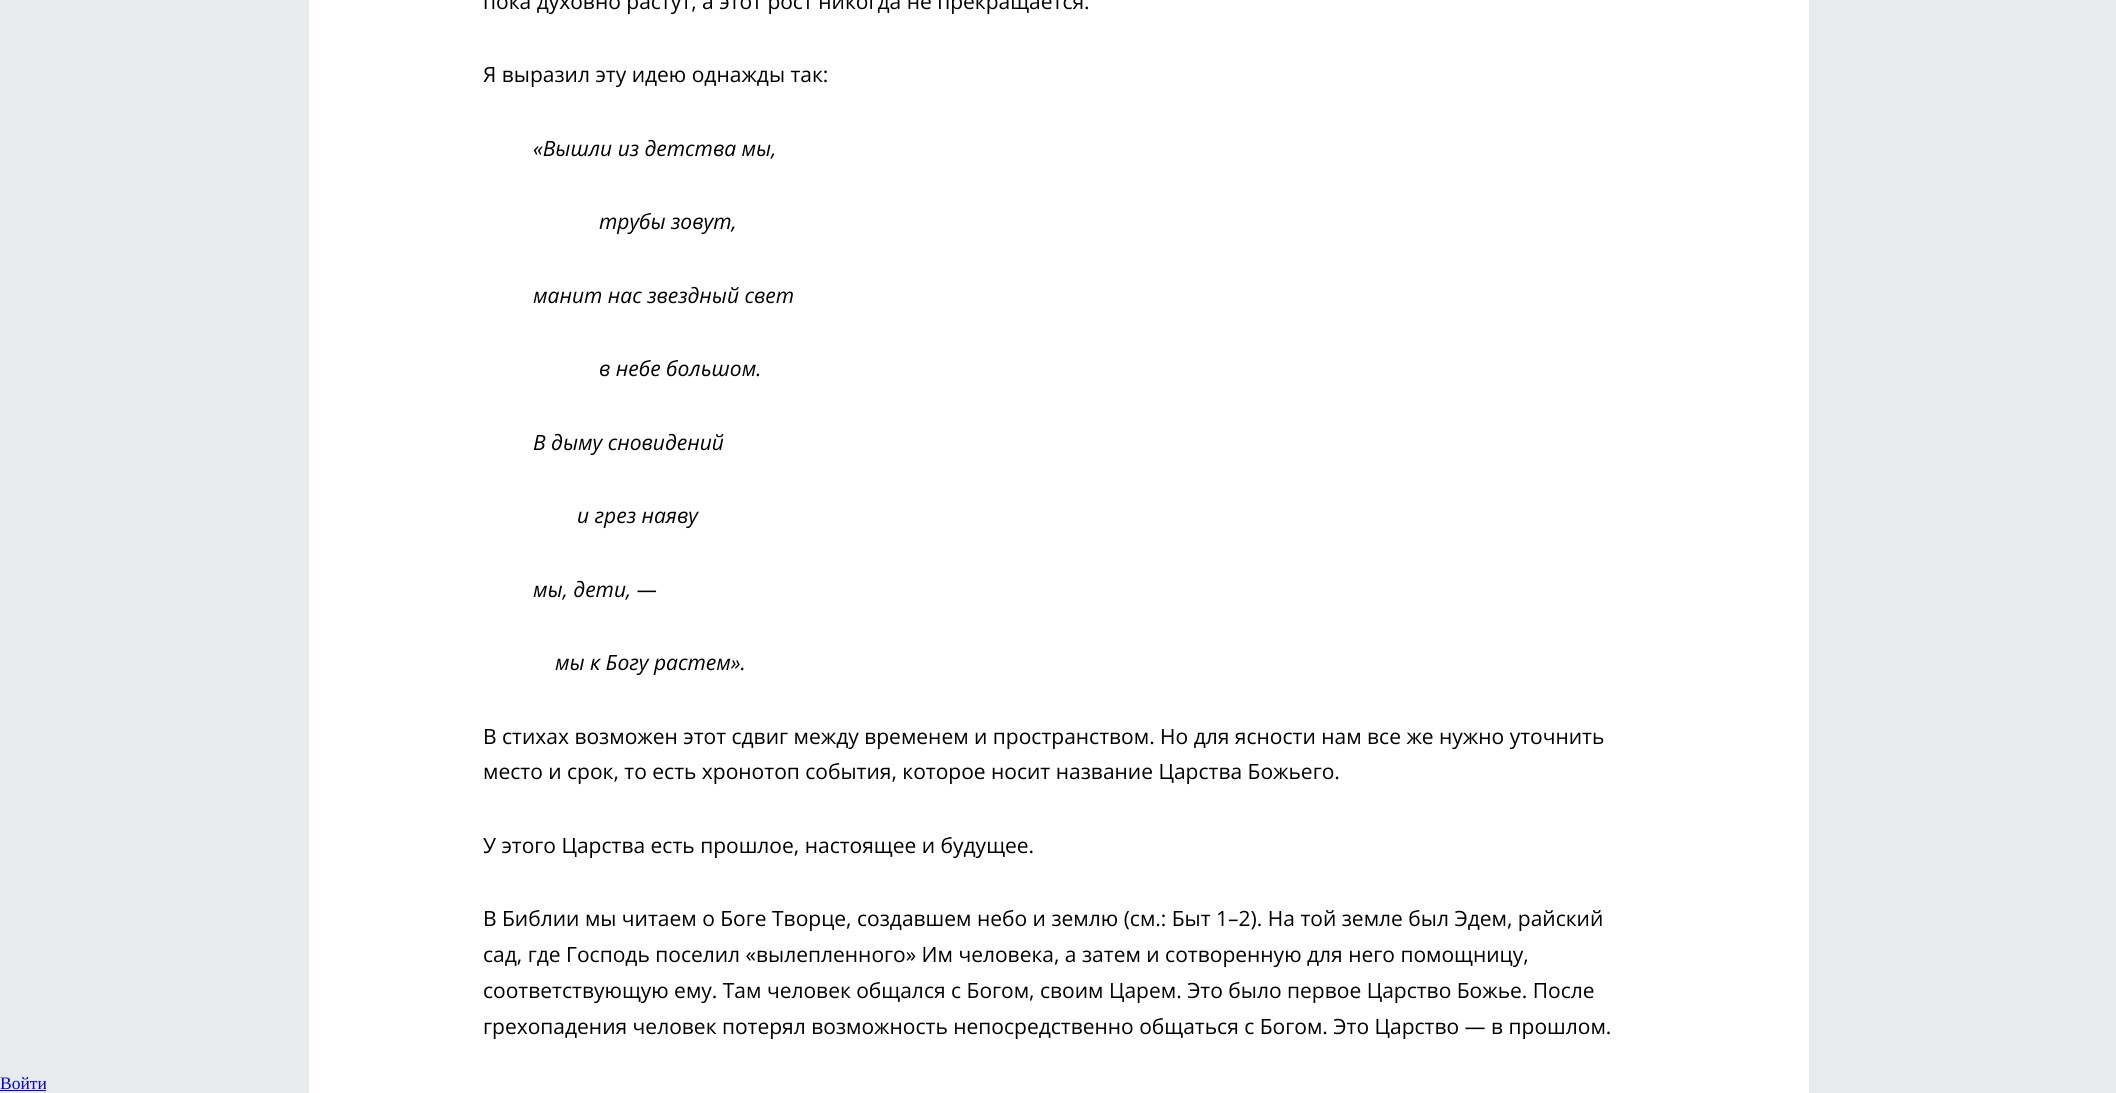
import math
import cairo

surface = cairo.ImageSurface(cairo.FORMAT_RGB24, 2116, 1093)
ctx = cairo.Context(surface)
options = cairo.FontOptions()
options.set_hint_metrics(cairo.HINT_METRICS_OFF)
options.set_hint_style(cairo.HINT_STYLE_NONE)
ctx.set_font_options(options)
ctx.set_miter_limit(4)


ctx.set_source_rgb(0.91, 0.918, 0.925)
ctx.paint()
ctx.set_source_rgb(1, 1, 1)
ctx.rectangle(309, 0, 1500, 1093)
ctx.fill()
ctx.select_font_face("Open Sans")
ctx.set_font_size(21)
ctx.set_source_rgb(0, 0, 0)
ctx.move_to(483, 9)
ctx.show_text("пока духовно растут, а этот рост никогда не прекращается.")
ctx.move_to(483, 82)
ctx.show_text("Я выразил эту идею однажды так:")
ctx.select_font_face("Open Sans", cairo.FONT_SLANT_ITALIC)
ctx.move_to(533, 156)
ctx.show_text("«Вышли из детства мы,")
ctx.move_to(599, 229)
ctx.show_text("трубы зовут,")
ctx.move_to(533, 303)
ctx.show_text("манит нас звездный свет")
ctx.move_to(599, 376)
ctx.show_text("в небе большом.")
ctx.move_to(533, 450)
ctx.show_text("В дыму сновидений")
ctx.move_to(577, 523)
ctx.show_text("и грез наяву")
ctx.move_to(533, 597)
ctx.show_text("мы, дети, —")
ctx.move_to(555, 670)
ctx.show_text("мы к Богу растем».")
ctx.select_font_face("Open Sans")
ctx.move_to(483, 744)
ctx.show_text("В стихах возможен этот сдвиг между временем и пространством. Но для ясности нам все же нужно уточнить")
ctx.move_to(483, 779)
ctx.show_text("место и срок, то есть хронотоп события, которое носит название Царства Божьего.")
ctx.move_to(483, 853)
ctx.show_text("У этого Царства есть прошлое, настоящее и будущее.")
ctx.move_to(483, 926)
ctx.show_text("В Библии мы читаем о Боге Творце, создавшем небо и землю (см.: Быт 1–2). На той земле был Эдем, райский")
ctx.move_to(483, 962)
ctx.show_text("сад, где Господь поселил «вылепленного» Им человека, а затем и сотворенную для него помощницу,")
ctx.move_to(483, 998)
ctx.show_text("соответствующую ему. Там человек общался с Богом, своим Царем. Это было первое Царство Божье. После")
ctx.move_to(483, 1034)
ctx.show_text("грехопадения человек потерял возможность непосредственно общаться с Богом. Это Царство — в прошлом.")
ctx.select_font_face("Liberation Serif")
ctx.set_font_size(17.5)
ctx.set_source_rgb(0, 0, 0.933)
ctx.move_to(0, 1089)
ctx.show_text("Войти")
ctx.rectangle(0, 1090, 46, 1)
ctx.fill()
surface.write_to_png("page.png")
